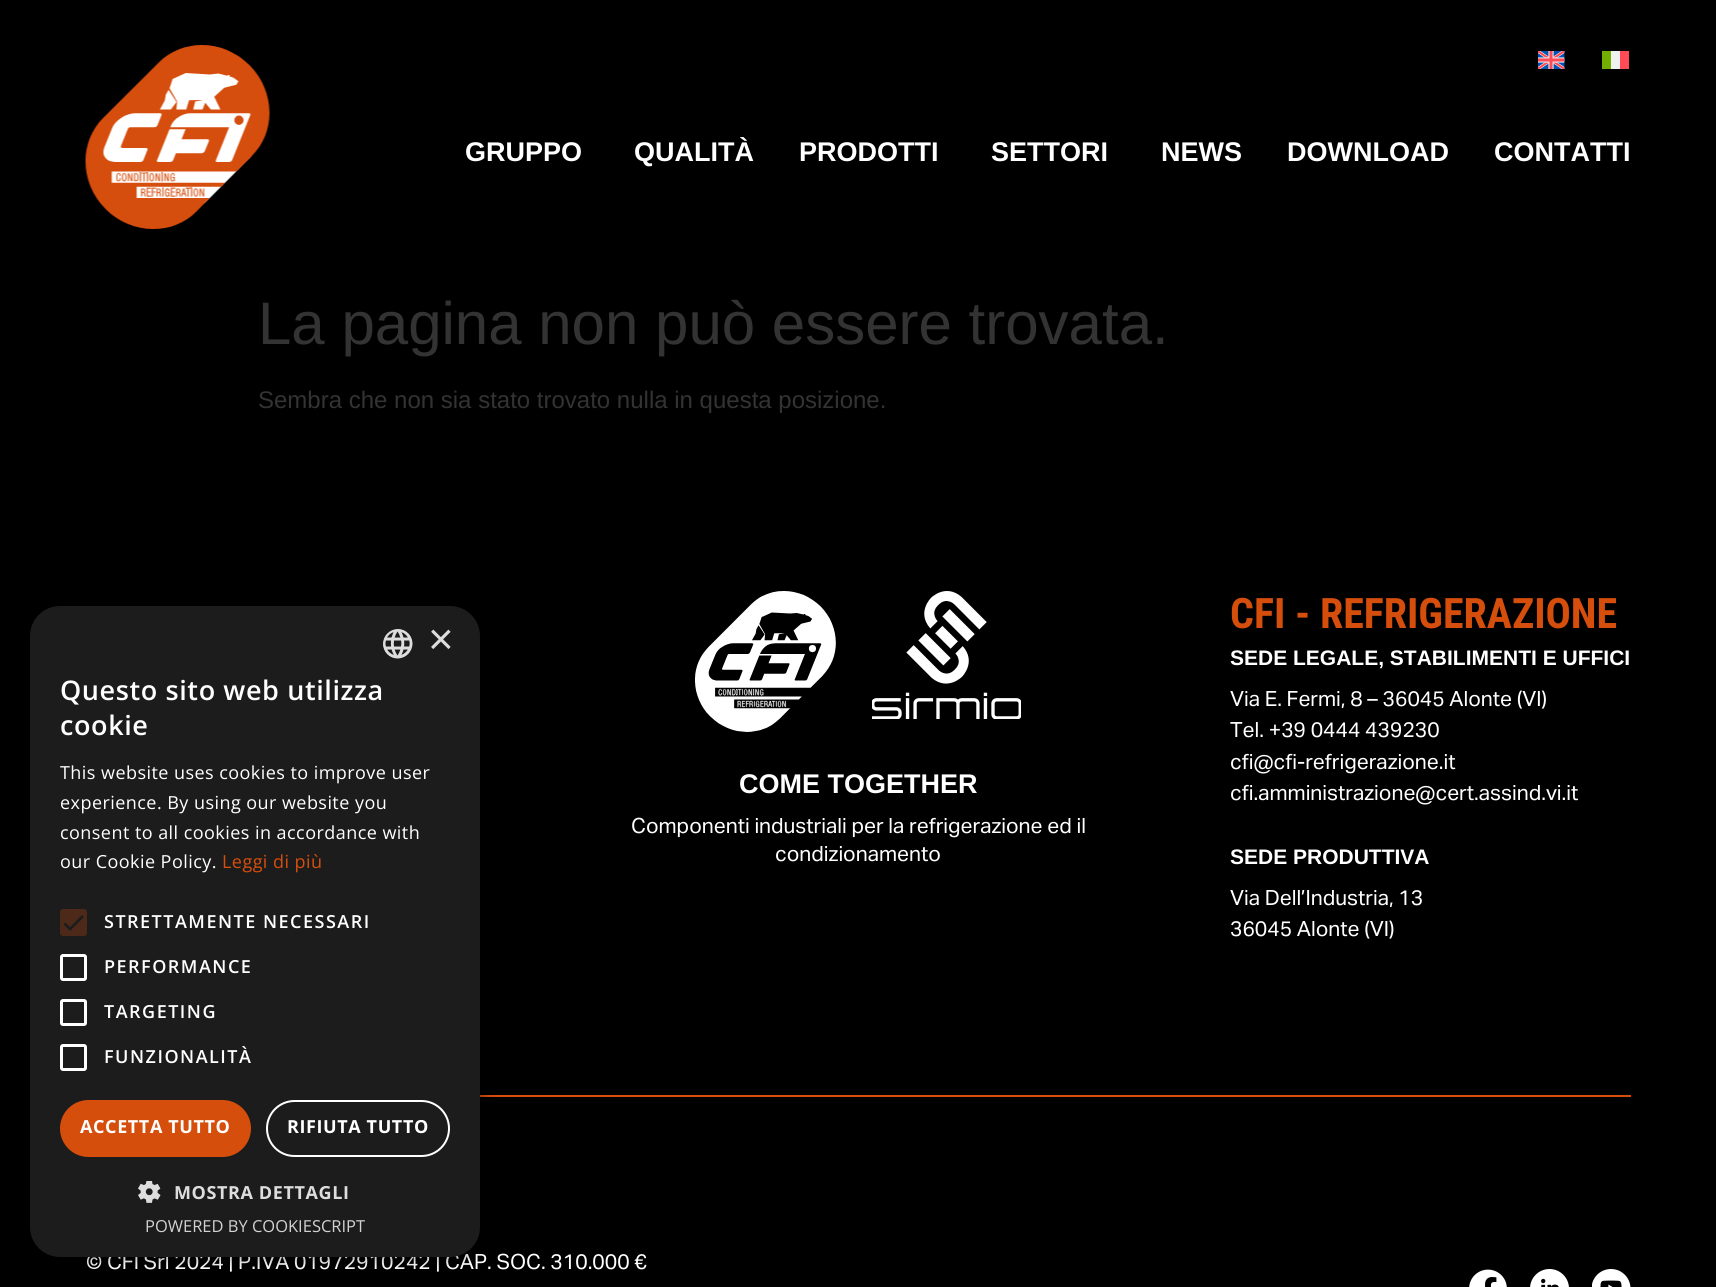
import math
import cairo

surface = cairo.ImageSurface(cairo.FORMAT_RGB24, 1716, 1287)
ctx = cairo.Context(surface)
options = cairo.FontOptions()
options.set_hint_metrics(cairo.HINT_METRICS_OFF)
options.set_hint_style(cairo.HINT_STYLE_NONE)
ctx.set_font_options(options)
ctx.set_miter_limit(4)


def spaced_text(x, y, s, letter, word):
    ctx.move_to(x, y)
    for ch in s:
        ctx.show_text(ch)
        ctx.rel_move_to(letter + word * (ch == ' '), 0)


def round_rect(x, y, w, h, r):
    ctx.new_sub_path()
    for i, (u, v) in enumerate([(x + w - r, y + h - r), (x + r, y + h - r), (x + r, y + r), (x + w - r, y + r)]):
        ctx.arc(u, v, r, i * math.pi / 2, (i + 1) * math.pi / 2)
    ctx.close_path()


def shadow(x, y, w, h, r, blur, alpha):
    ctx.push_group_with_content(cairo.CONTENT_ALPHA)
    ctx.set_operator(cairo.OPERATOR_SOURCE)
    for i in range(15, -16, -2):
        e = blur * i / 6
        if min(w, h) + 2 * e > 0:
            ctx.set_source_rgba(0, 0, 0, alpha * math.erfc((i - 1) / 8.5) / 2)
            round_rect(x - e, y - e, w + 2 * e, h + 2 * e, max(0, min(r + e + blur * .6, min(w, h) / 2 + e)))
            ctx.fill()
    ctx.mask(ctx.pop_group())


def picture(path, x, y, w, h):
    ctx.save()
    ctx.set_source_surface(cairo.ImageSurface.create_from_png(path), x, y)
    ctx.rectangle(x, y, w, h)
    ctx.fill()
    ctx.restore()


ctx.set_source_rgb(0, 0, 0)
ctx.paint()
picture("img1.png", 85, 45, 185, 184)
picture("img2.png", 1538, 51, 27, 18)
ctx.set_source_rgb(0.451, 0.686, 0)
ctx.rectangle(1602, 51, 9, 18)
ctx.fill()
ctx.set_source_rgb(0.941, 0.941, 0.941)
ctx.rectangle(1611, 51, 9, 18)
ctx.fill()
ctx.set_source_rgb(1, 0.294, 0.333)
ctx.rectangle(1620, 51, 9, 18)
ctx.fill()
ctx.select_font_face("Liberation Sans", cairo.FONT_SLANT_NORMAL, cairo.FONT_WEIGHT_BOLD)
ctx.set_font_size(27)
ctx.set_source_rgb(1, 1, 1)
ctx.move_to(465, 161)
ctx.show_text("GRUPPO")
ctx.move_to(634, 161)
ctx.show_text("QUALITÀ")
ctx.move_to(799, 161)
ctx.show_text("PRODOTTI")
ctx.move_to(991, 161)
ctx.show_text("SETTORI")
ctx.move_to(1161, 161)
ctx.show_text("NEWS")
ctx.move_to(1287, 161)
ctx.show_text("DOWNLOAD")
ctx.move_to(1494, 161)
ctx.show_text("CONTATTI")
ctx.select_font_face("Liberation Sans")
ctx.set_font_size(60)
ctx.set_source_rgb(0.2, 0.2, 0.2)
ctx.move_to(258, 344)
ctx.show_text("La pagina non può essere trovata.")
ctx.set_font_size(24)
ctx.move_to(258, 408)
ctx.show_text("Sembra che non sia stato trovato nulla in questa posizione.")
picture("img3.png", 695, 591, 141, 141)
picture("img4.png", 872, 591, 149, 128)
ctx.select_font_face("Liberation Sans", cairo.FONT_SLANT_NORMAL, cairo.FONT_WEIGHT_BOLD)
ctx.set_font_size(27)
ctx.set_source_rgb(1, 1, 1)
ctx.move_to(739, 793)
ctx.show_text("COME TOGETHER")
ctx.select_font_face("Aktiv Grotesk")
ctx.set_font_size(21)
ctx.move_to(631, 833)
ctx.show_text("Componenti industriali per la refrigerazione ed il")
ctx.move_to(775, 861)
ctx.show_text("condizionamento")
ctx.select_font_face("Roboto Condensed", cairo.FONT_SLANT_NORMAL, cairo.FONT_WEIGHT_BOLD)
ctx.set_font_size(42)
ctx.set_source_rgb(0.839, 0.306, 0.047)
ctx.move_to(1230, 628)
ctx.show_text("CFI - REFRIGERAZIONE")
ctx.select_font_face("Liberation Sans", cairo.FONT_SLANT_NORMAL, cairo.FONT_WEIGHT_BOLD)
ctx.set_font_size(21)
ctx.set_source_rgb(1, 1, 1)
ctx.move_to(1230, 665)
ctx.show_text("SEDE LEGALE, STABILIMENTI E UFFICI")
ctx.select_font_face("Aktiv Grotesk")
ctx.move_to(1230, 706)
ctx.show_text("Via E. Fermi, 8 – 36045 Alonte (VI)")
ctx.move_to(1230, 737)
ctx.show_text("Tel. +39 0444 439230")
ctx.move_to(1230, 769)
ctx.show_text("cfi@cfi-refrigerazione.it")
ctx.move_to(1230, 800)
ctx.show_text("cfi.amministrazione@cert.assind.vi.it")
ctx.select_font_face("Liberation Sans", cairo.FONT_SLANT_NORMAL, cairo.FONT_WEIGHT_BOLD)
ctx.move_to(1230, 864)
ctx.show_text("SEDE PRODUTTIVA")
ctx.select_font_face("Aktiv Grotesk")
ctx.move_to(1230, 905)
ctx.show_text("Via Dell’Industria, 13")
ctx.move_to(1230, 936)
ctx.show_text("36045 Alonte (VI)")
ctx.set_source_rgb(0.839, 0.306, 0.047)
ctx.rectangle(480, 1095, 1151, 2)
ctx.fill()
ctx.set_source_rgb(1, 1, 1)
ctx.move_to(86, 1269)
ctx.show_text("© CFI Srl 2024 | P.IVA 01972910242 | CAP. SOC. 310.000 €")
picture("img5.png", 1469, 1269, 38, 18)
picture("img6.png", 1530, 1269, 39, 18)
picture("img7.png", 1592, 1269, 39, 18)
ctx.set_source_rgb(0, 0, 0)
shadow(32, 609, 450, 651, 30, 6, 0.35)
ctx.set_source_rgb(0.11, 0.11, 0.11)
round_rect(30, 606, 450, 651, 30)
ctx.fill()
picture("img8.png", 383, 629, 30, 30)
ctx.select_font_face("Liberation Sans")
ctx.set_font_size(44)
ctx.set_source_rgb(0.867, 0.867, 0.867)
ctx.move_to(428, 654)
ctx.show_text("×")
ctx.select_font_face("Open Sans SemiBold")
ctx.set_font_size(27)
ctx.set_source_rgb(1, 1, 1)
spaced_text(60, 700, "Questo sito web utilizza", 0.6, 0)
spaced_text(60, 735, "cookie", 0.6, 0)
ctx.select_font_face("Open Sans")
ctx.set_font_size(18)
spaced_text(60, 779, "This website uses cookies to improve user", 0.45, 0)
spaced_text(60, 809, "experience. By using our website you", 0.45, 0)
spaced_text(60, 839, "consent to all cookies in accordance with", 0.45, 0)
spaced_text(60, 868, "our Cookie Policy.", 0.45, 0)
ctx.set_source_rgb(0.839, 0.306, 0.047)
spaced_text(222, 868, "Leggi di più", 0.45, 0)
ctx.set_source_rgb(0.298, 0.161, 0.094)
round_rect(60, 909, 27, 27, 3)
ctx.fill()
ctx.new_path()
ctx.move_to(64.5, 923.5)
ctx.line_to(70, 929)
ctx.line_to(83, 916)
ctx.set_source_rgb(0.11, 0.11, 0.11)
ctx.set_line_width(2.7)
ctx.stroke()
ctx.select_font_face("Open Sans SemiBold")
ctx.set_source_rgb(1, 1, 1)
spaced_text(104, 928, "STRETTAMENTE NECESSARI", 1.5, 0)
round_rect(61.5, 955.5, 24, 24, 1.5)
ctx.set_line_width(3)
ctx.stroke()
spaced_text(104, 973, "PERFORMANCE", 1.5, 0)
round_rect(61.5, 1000.5, 24, 24, 1.5)
ctx.stroke()
spaced_text(104, 1018, "TARGETING", 1.5, 0)
round_rect(61.5, 1045.5, 24, 24, 1.5)
ctx.stroke()
spaced_text(104, 1063, "FUNZIONALITÀ", 1.5, 0)
ctx.set_source_rgb(0.839, 0.306, 0.047)
round_rect(60, 1100, 191, 57, 28.5)
ctx.fill()
ctx.select_font_face("Open Sans", cairo.FONT_SLANT_NORMAL, cairo.FONT_WEIGHT_BOLD)
ctx.set_source_rgb(1, 1, 1)
spaced_text(80, 1133, "ACCETTA TUTTO", 0.6, 0)
round_rect(267, 1101, 182, 55, 27.5)
ctx.set_line_width(2)
ctx.stroke()
spaced_text(287, 1133, "RIFIUTA TUTTO", 0.6, 0)
picture("img9.png", 138, 1181, 23, 22)
ctx.set_source_rgb(0.867, 0.867, 0.867)
spaced_text(174, 1199, "MOSTRA DETTAGLI", 0.6, 0)
ctx.select_font_face("Open Sans")
ctx.set_font_size(16.5)
ctx.set_source_rgb(0.824, 0.824, 0.824)
ctx.move_to(145, 1232)
ctx.show_text("POWERED BY COOKIESCRIPT")
surface.write_to_png("page.png")
